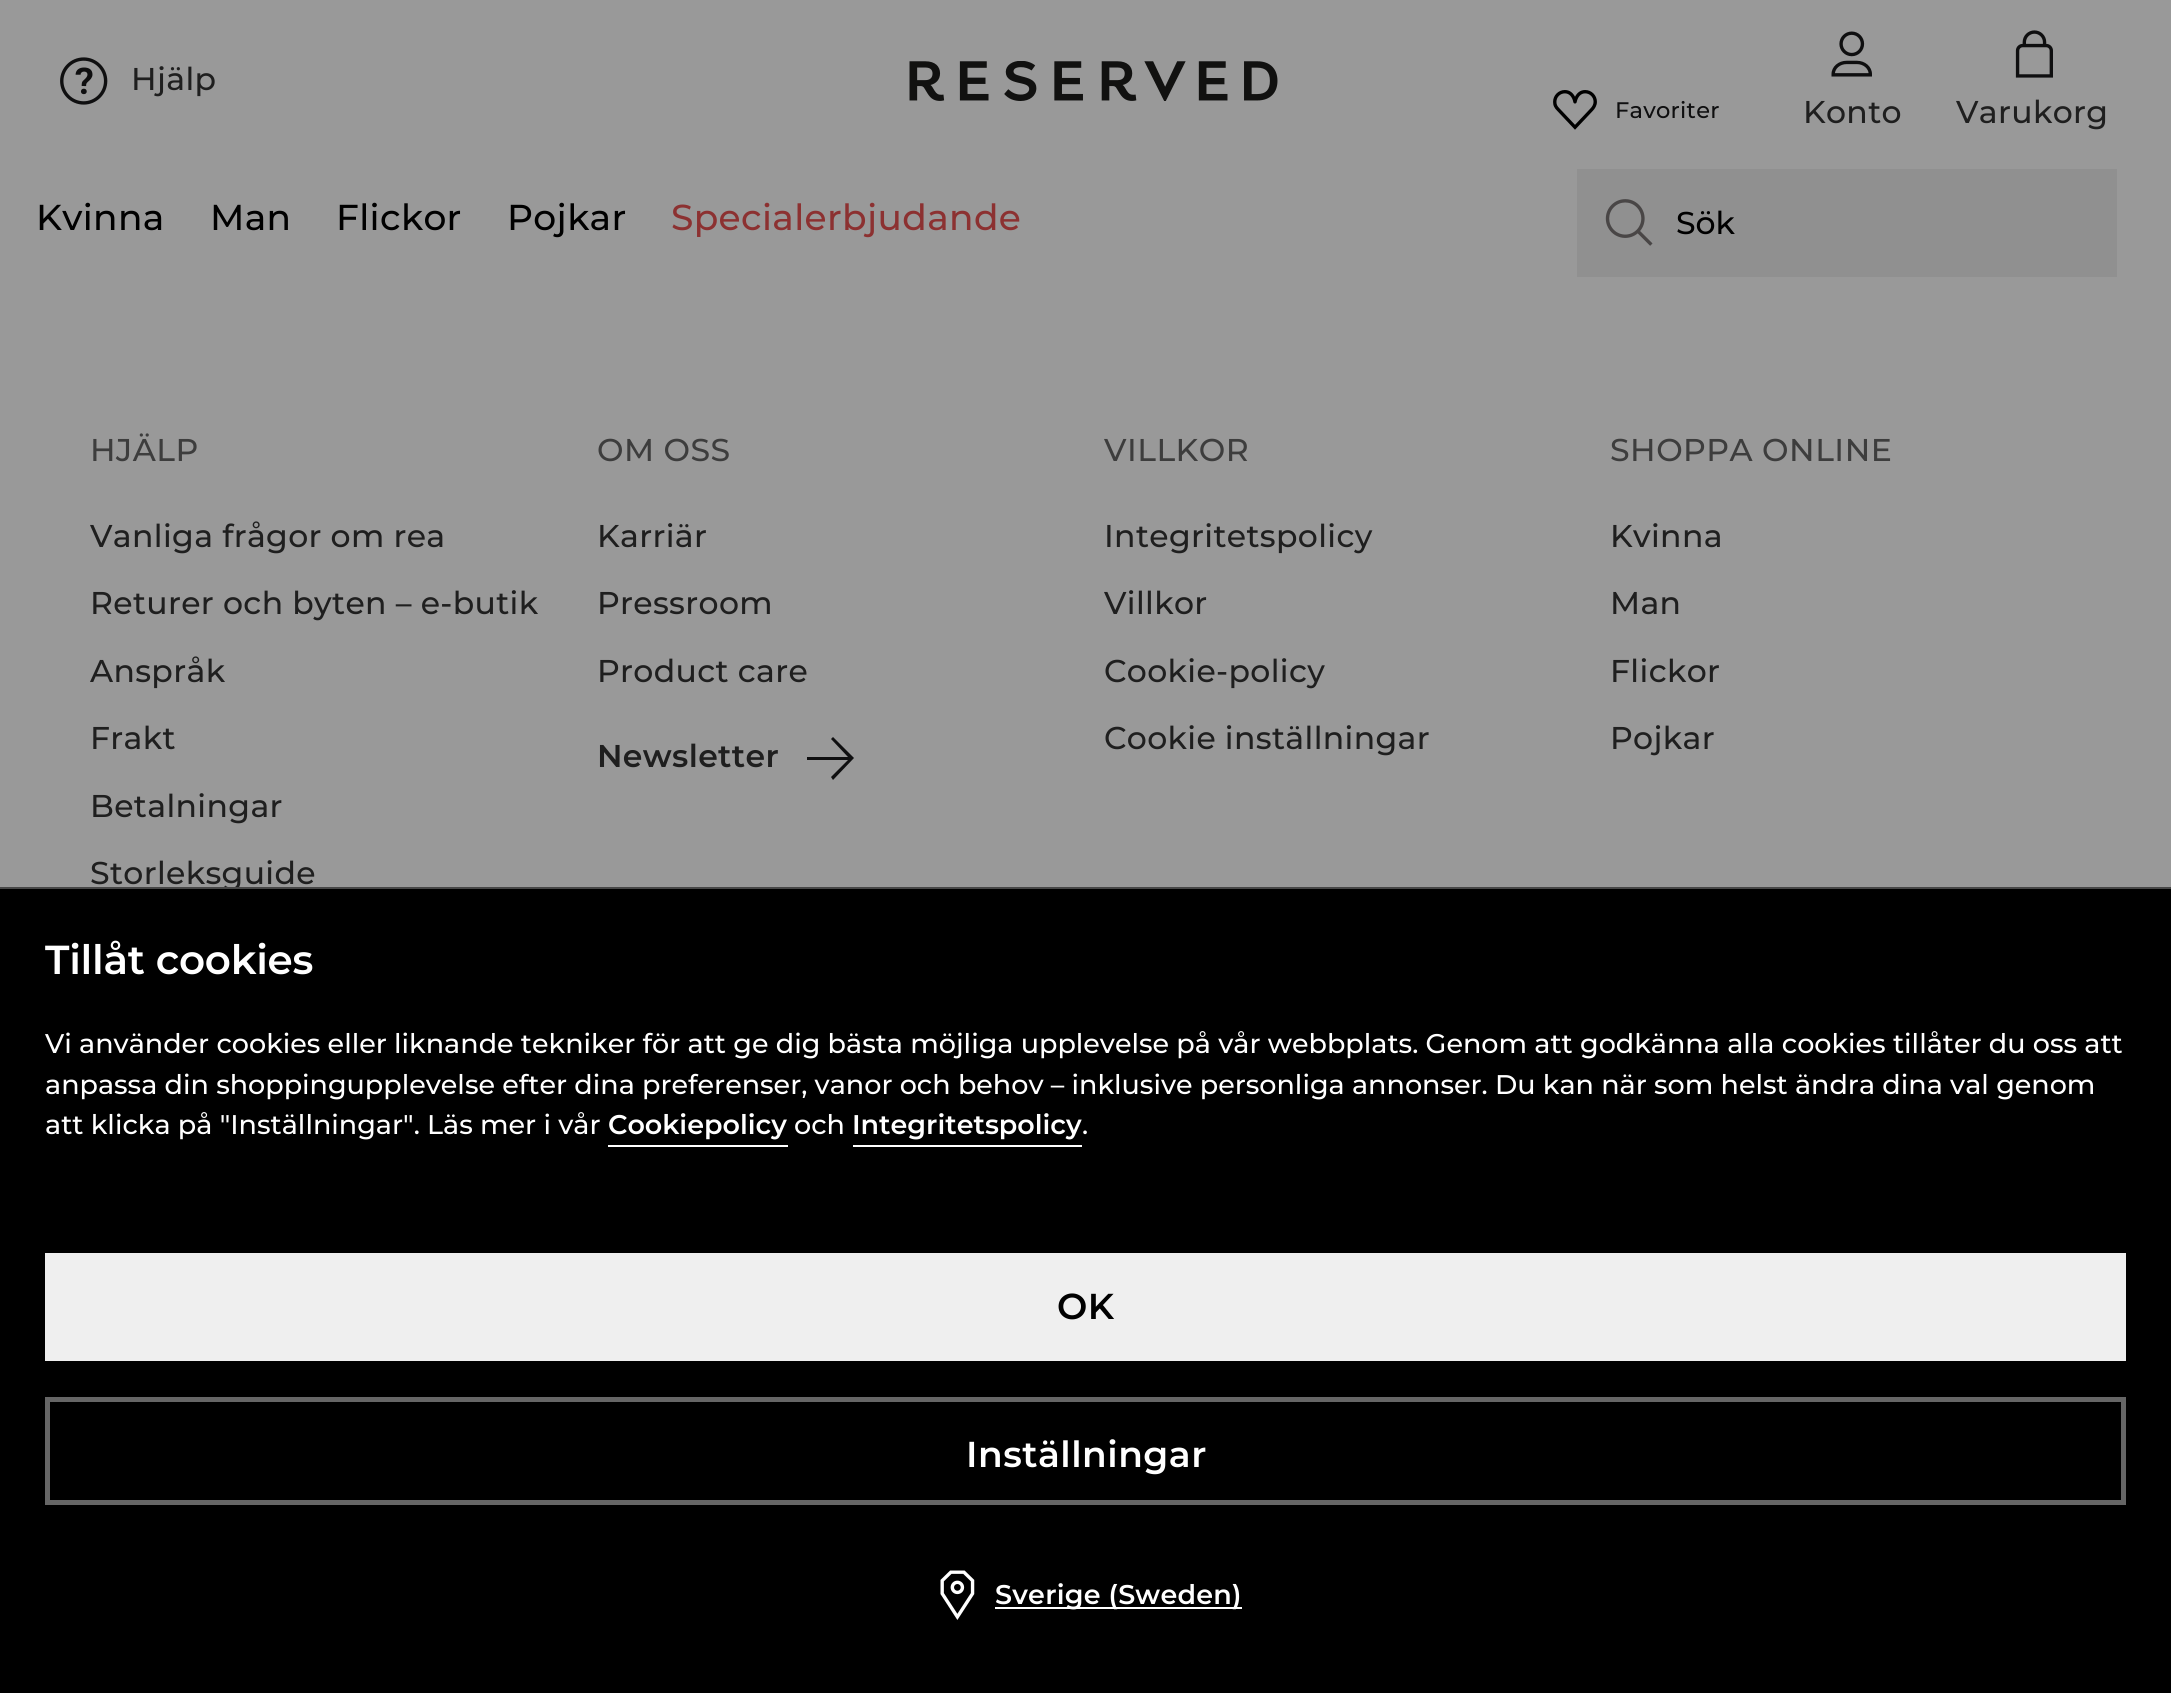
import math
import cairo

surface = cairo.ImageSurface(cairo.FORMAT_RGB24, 2171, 1693)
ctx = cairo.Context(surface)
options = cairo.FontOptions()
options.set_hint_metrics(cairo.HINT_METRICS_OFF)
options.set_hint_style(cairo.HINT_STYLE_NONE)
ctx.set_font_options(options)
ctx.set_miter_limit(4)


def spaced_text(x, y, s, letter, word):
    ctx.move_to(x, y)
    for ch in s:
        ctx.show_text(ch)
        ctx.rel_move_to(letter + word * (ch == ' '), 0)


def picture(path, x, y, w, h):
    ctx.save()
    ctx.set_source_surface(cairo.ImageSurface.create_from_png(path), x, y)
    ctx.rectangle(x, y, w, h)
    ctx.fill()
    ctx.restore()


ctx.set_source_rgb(0.6, 0.6, 0.6)
ctx.paint()
picture("img1.png", 60, 57, 48, 48)
ctx.select_font_face("Montserrat Medium")
ctx.set_font_size(31.5)
ctx.set_source_rgb(0.122, 0.122, 0.122)
spaced_text(131, 90, "Hjälp", 0.35, 0)
picture("img2.png", 909, 61, 369, 40)
picture("img3.png", 1553, 90, 44, 40)
ctx.set_font_size(22.5)
ctx.set_source_rgb(0.059, 0.059, 0.063)
spaced_text(1615, 118, "Favoriter", 0.25, 0)
picture("img4.png", 1831, 31, 41, 46)
ctx.set_font_size(31.5)
ctx.set_source_rgb(0.122, 0.122, 0.122)
spaced_text(1803, 123, "Konto", 0.35, 0)
picture("img5.png", 2015, 30, 38, 48)
spaced_text(1956, 123, "Varukorg", 0.35, 0)
ctx.set_font_size(36)
ctx.set_source_rgb(0, 0, 0)
spaced_text(36, 230, "Kvinna", 0.35, 0)
spaced_text(210, 230, "Man", 0.35, 0)
spaced_text(336, 230, "Flickor", 0.35, 0)
spaced_text(507, 230, "Pojkar", 0.35, 0)
ctx.set_source_rgb(0.549, 0.192, 0.192)
spaced_text(671, 230, "Specialerbjudande", 0.35, 0)
ctx.set_source_rgb(0.565, 0.565, 0.565)
ctx.rectangle(1577, 169, 540, 108)
ctx.fill()
picture("img6.png", 1605, 199, 48, 47)
ctx.set_font_size(31.5)
ctx.set_source_rgb(0, 0, 0)
ctx.move_to(1676, 234)
ctx.show_text("Sök")
ctx.set_source_rgb(0.239, 0.239, 0.239)
spaced_text(90, 461, "HJÄLP", 0.5, 0)
ctx.set_source_rgb(0.122, 0.122, 0.122)
spaced_text(90, 547, "Vanliga frågor om rea", 0.35, 0)
spaced_text(90, 614, "Returer och byten – e-butik", 0.35, 0)
spaced_text(90, 682, "Anspråk", 0.35, 0)
spaced_text(90, 749, "Frakt", 0.35, 0)
spaced_text(90, 817, "Betalningar", 0.35, 0)
spaced_text(90, 884, "Storleksguide", 0.35, 0)
ctx.set_source_rgb(0.239, 0.239, 0.239)
spaced_text(597, 461, "OM OSS", 0.5, 0)
ctx.set_source_rgb(0.122, 0.122, 0.122)
spaced_text(597, 547, "Karriär", 0.35, 0)
spaced_text(597, 614, "Pressroom", 0.35, 0)
spaced_text(597, 682, "Product care", 0.35, 0)
ctx.select_font_face("Montserrat SemiBold")
spaced_text(597, 767, "Newsletter", 0.35, 0)
ctx.set_source_rgb(0.059, 0.059, 0.063)
ctx.new_path()
ctx.move_to(848, 760)
ctx.line_to(807, 760)
ctx.line_to(807, 757)
ctx.line_to(848, 757)
ctx.line_to(831, 739)
ctx.line_to(833, 737)
ctx.line_to(854, 758)
ctx.line_to(833, 780)
ctx.line_to(831, 777)
ctx.close_path()
ctx.fill()
ctx.select_font_face("Montserrat Medium")
ctx.set_source_rgb(0.239, 0.239, 0.239)
spaced_text(1104, 461, "VILLKOR", 0.5, 0)
ctx.set_source_rgb(0.122, 0.122, 0.122)
spaced_text(1104, 547, "Integritetspolicy", 0.35, 0)
spaced_text(1104, 614, "Villkor", 0.35, 0)
spaced_text(1104, 682, "Cookie-policy", 0.35, 0)
spaced_text(1104, 749, "Cookie inställningar", 0.35, 0)
ctx.set_source_rgb(0.239, 0.239, 0.239)
spaced_text(1610, 461, "SHOPPA ONLINE", 0.5, 0)
ctx.set_source_rgb(0.122, 0.122, 0.122)
spaced_text(1610, 547, "Kvinna", 0.35, 0)
spaced_text(1610, 614, "Man", 0.35, 0)
spaced_text(1610, 682, "Flickor", 0.35, 0)
spaced_text(1610, 749, "Pojkar", 0.35, 0)
ctx.set_source_rgb(0, 0, 0)
ctx.rectangle(0, 889, 2171, 804)
ctx.fill()
ctx.set_source_rgb(0.278, 0.278, 0.278)
ctx.rectangle(0, 887, 2171, 2)
ctx.fill()
ctx.select_font_face("Montserrat SemiBold")
ctx.set_font_size(40.5)
ctx.set_source_rgb(1, 1, 1)
spaced_text(45, 974, "Tillåt cookies", -0.25, 0)
ctx.select_font_face("Montserrat Medium")
ctx.set_font_size(27)
ctx.move_to(45, 1053)
ctx.show_text("Vi använder cookies eller liknande tekniker för att ge dig bästa möjliga upplevelse på vår webbplats. Genom att godkänna alla cookies tillåter du oss att")
ctx.move_to(45, 1094)
ctx.show_text("anpassa din shoppingupplevelse efter dina preferenser, vanor och behov – inklusive personliga annonser. Du kan när som helst ändra dina val genom")
ctx.move_to(45, 1134)
ctx.show_text("att klicka på \"Inställningar\". Läs mer i vår")
ctx.select_font_face("Montserrat SemiBold")
ctx.move_to(608, 1134)
ctx.show_text("Cookiepolicy")
ctx.rectangle(608, 1145, 180, 2)
ctx.fill()
ctx.select_font_face("Montserrat Medium")
ctx.move_to(794, 1134)
ctx.show_text("och")
ctx.select_font_face("Montserrat SemiBold")
ctx.move_to(852, 1134)
ctx.show_text("Integritetspolicy")
ctx.rectangle(853, 1145, 229, 2)
ctx.fill()
ctx.select_font_face("Montserrat Medium")
ctx.move_to(1082, 1134)
ctx.show_text(".")
ctx.set_source_rgb(0.937, 0.937, 0.937)
ctx.rectangle(45, 1253, 2081, 108)
ctx.fill()
ctx.select_font_face("Montserrat SemiBold")
ctx.set_font_size(36)
ctx.set_source_rgb(0, 0, 0)
spaced_text(1057, 1319, "OK", 0.5, 0)
ctx.rectangle(47.5, 1399.5, 2076, 103)
ctx.set_source_rgb(0.4, 0.4, 0.4)
ctx.set_line_width(5)
ctx.stroke()
ctx.set_source_rgb(1, 1, 1)
spaced_text(966, 1467, "Inställningar", 0.5, 0)
picture("img7.png", 940, 1570, 35, 50)
ctx.rectangle(995, 1607, 247, 2)
ctx.fill()
ctx.set_font_size(27)
spaced_text(995, 1604, "Sverige (Sweden)", 0.25, 0)
surface.write_to_png("page.png")
